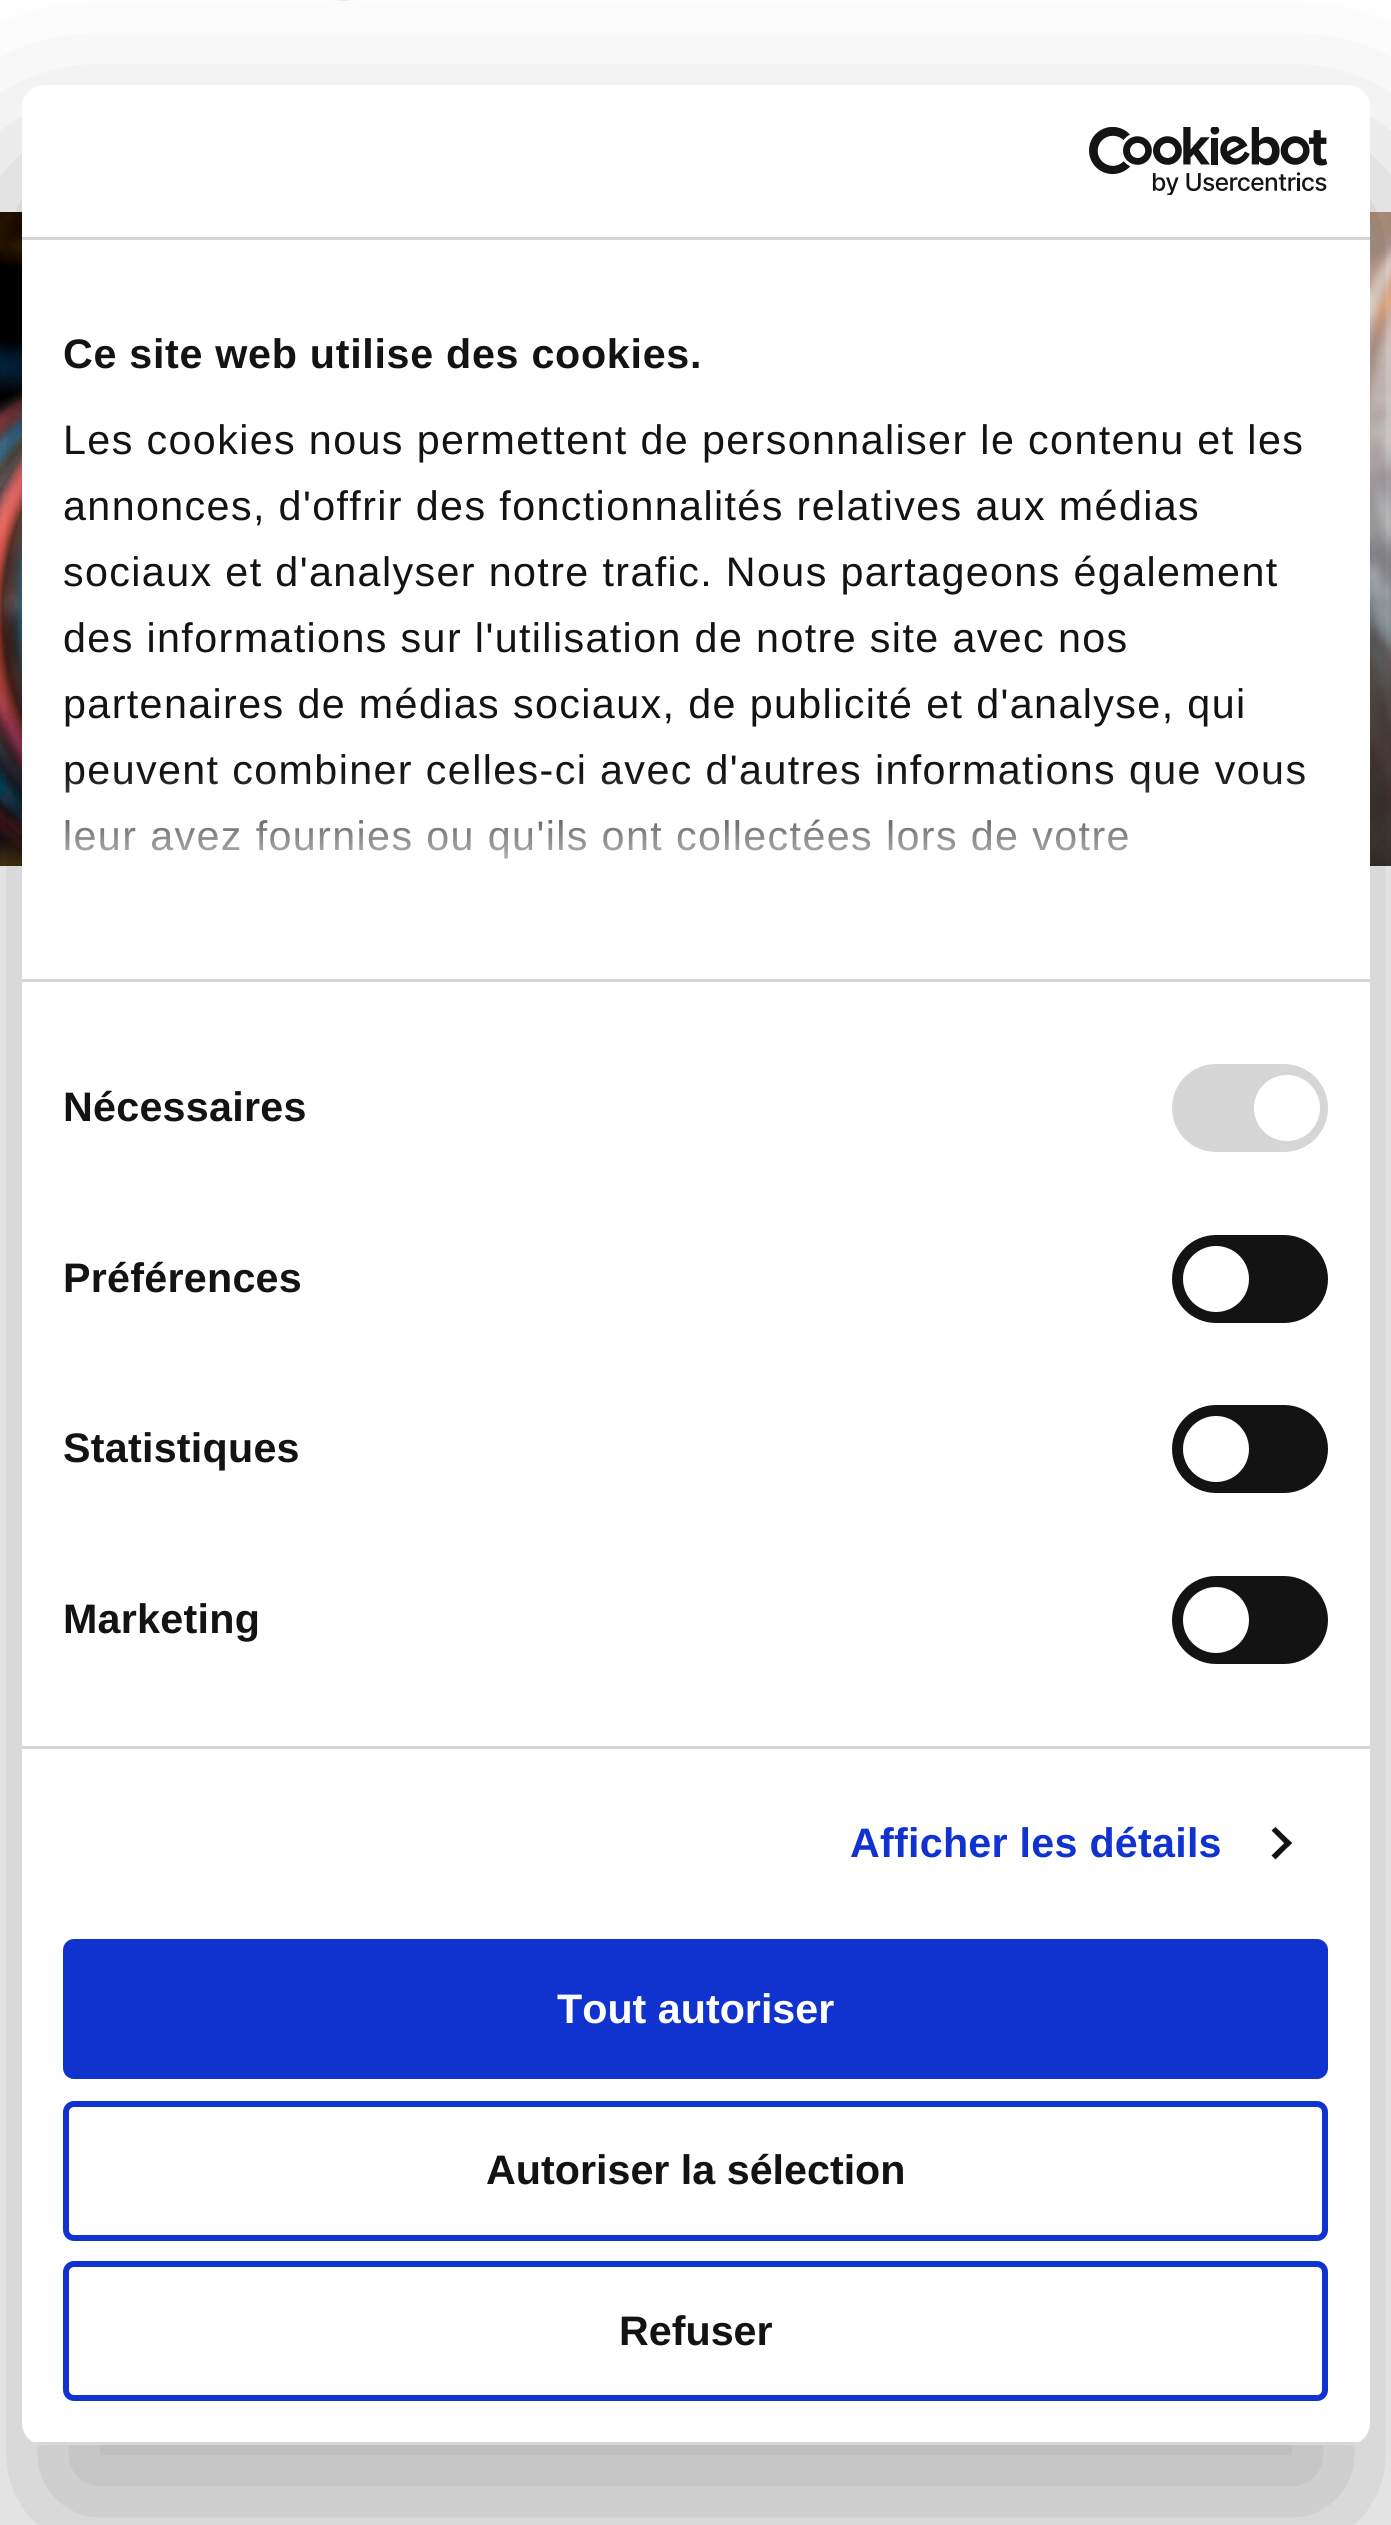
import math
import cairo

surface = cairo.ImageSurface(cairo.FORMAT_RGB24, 1391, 2525)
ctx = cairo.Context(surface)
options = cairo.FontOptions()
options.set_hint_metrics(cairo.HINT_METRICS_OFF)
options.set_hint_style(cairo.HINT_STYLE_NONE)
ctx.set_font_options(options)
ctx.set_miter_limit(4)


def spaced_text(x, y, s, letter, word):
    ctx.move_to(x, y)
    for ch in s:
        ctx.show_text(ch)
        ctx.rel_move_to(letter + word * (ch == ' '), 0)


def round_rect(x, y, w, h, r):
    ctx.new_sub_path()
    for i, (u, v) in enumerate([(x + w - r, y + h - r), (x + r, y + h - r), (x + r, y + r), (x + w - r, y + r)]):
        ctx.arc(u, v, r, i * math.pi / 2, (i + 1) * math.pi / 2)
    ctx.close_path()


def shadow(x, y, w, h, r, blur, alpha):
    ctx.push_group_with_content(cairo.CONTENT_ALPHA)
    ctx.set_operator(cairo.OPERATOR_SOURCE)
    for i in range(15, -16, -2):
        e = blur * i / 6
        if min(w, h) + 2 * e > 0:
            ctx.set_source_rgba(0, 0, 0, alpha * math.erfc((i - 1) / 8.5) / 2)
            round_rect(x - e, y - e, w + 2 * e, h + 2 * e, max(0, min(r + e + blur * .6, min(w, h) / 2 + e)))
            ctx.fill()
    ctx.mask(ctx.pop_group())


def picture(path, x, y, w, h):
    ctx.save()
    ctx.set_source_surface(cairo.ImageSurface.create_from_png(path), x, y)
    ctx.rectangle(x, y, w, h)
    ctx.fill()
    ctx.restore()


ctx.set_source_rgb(1, 1, 1)
ctx.paint()
picture("img1.png", 334, 0, 19, 1)
picture("img2.png", 0, 212, 1391, 654)
ctx.set_source_rgb(0, 0, 0)
shadow(22, 173, 1348, 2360, 22, 93.5, 0.3)
ctx.set_source_rgb(1, 1, 1)
round_rect(22, 85, 1348, 2360, 22)
ctx.fill()
ctx.set_source_rgb(0.839, 0.839, 0.839)
ctx.rectangle(22, 237, 1348, 3)
ctx.fill()
picture("img3.png", 1089, 127, 239, 68)
ctx.rectangle(22, 979, 1348, 3)
ctx.fill()
ctx.select_font_face("Liberation Sans", cairo.FONT_SLANT_NORMAL, cairo.FONT_WEIGHT_BOLD)
ctx.set_font_size(41.25)
ctx.set_source_rgb(0.078, 0.078, 0.078)
spaced_text(63, 368, "Ce site web utilise des cookies.", 0.7, 0)
ctx.select_font_face("Liberation Sans")
spaced_text(63, 454, "Les cookies nous permettent de personnaliser le contenu et les", 1.38, 0)
spaced_text(63, 520, "annonces, d'offrir des fonctionnalités relatives aux médias", 1.38, 0)
spaced_text(63, 586, "sociaux et d'analyser notre trafic. Nous partageons également", 1.38, 0)
spaced_text(63, 652, "des informations sur l'utilisation de notre site avec nos", 1.38, 0)
spaced_text(63, 718, "partenaires de médias sociaux, de publicité et d'analyse, qui", 1.38, 0)
spaced_text(63, 784, "peuvent combiner celles-ci avec d'autres informations que vous", 1.38, 0)
spaced_text(63, 850, "leur avez fournies ou qu'ils ont collectées lors de votre", 1.38, 0)
gradient = cairo.LinearGradient(678, 978, 678, 772)
gradient.add_color_stop_rgba(0, 1, 1, 1, 1)
gradient.add_color_stop_rgba(0.5, 1, 1, 1, 0.8)
gradient.add_color_stop_rgba(1, 1, 1, 1, 0)
ctx.set_source(gradient)
ctx.rectangle(66, 775, 1239, 84)
ctx.fill()
ctx.set_source_rgb(0.839, 0.839, 0.839)
ctx.rectangle(22, 1746, 1348, 3)
ctx.fill()
ctx.select_font_face("Liberation Sans", cairo.FONT_SLANT_NORMAL, cairo.FONT_WEIGHT_BOLD)
ctx.set_source_rgb(0.078, 0.078, 0.078)
spaced_text(63, 1121, "Nécessaires", 0.25, 0)
ctx.set_source_rgb(0.839, 0.839, 0.839)
round_rect(1172, 1064, 156, 88, 44)
ctx.fill()
ctx.set_source_rgb(1, 1, 1)
ctx.arc(1287, 1108, 33, 0, 2 * math.pi)
ctx.fill()
ctx.set_source_rgb(0.078, 0.078, 0.078)
spaced_text(63, 1292, "Préférences", 0.25, 0)
round_rect(1172, 1235, 156, 88, 44)
ctx.fill()
ctx.set_source_rgb(1, 1, 1)
ctx.arc(1216, 1279, 33, 0, 2 * math.pi)
ctx.fill()
ctx.set_source_rgb(0.078, 0.078, 0.078)
spaced_text(63, 1462, "Statistiques", 0.25, 0)
round_rect(1172, 1405, 156, 88, 44)
ctx.fill()
ctx.set_source_rgb(1, 1, 1)
ctx.arc(1216, 1449, 33, 0, 2 * math.pi)
ctx.fill()
ctx.set_source_rgb(0.078, 0.078, 0.078)
spaced_text(63, 1633, "Marketing", 0.25, 0)
round_rect(1172, 1576, 156, 88, 44)
ctx.fill()
ctx.set_source_rgb(1, 1, 1)
ctx.arc(1216, 1620, 33, 0, 2 * math.pi)
ctx.fill()
ctx.set_source_rgb(0.063, 0.196, 0.812)
spaced_text(850, 1857, "Afficher les détails", 0.25, 0)
ctx.set_source_rgb(0.078, 0.078, 0.078)
ctx.new_path()
ctx.move_to(1275.5, 1827)
ctx.line_to(1292, 1843)
ctx.line_to(1288, 1847)
ctx.line_to(1271.5, 1830.5)
ctx.close_path()
ctx.fill()
ctx.new_path()
ctx.move_to(1288, 1839.5)
ctx.line_to(1292, 1843)
ctx.line_to(1275.5, 1859.5)
ctx.line_to(1271.5, 1855.5)
ctx.close_path()
ctx.fill()
ctx.save()
round_rect(22, 85, 1348, 2360, 22)
ctx.clip()
ctx.set_source_rgb(0.839, 0.839, 0.839)
ctx.rectangle(33, 2442, 1326, 3)
ctx.fill()
ctx.restore()
ctx.set_source_rgb(0.063, 0.196, 0.812)
round_rect(66, 1942, 1259, 134, 8)
ctx.fill_preserve()
ctx.set_line_width(6)
ctx.stroke()
ctx.set_source_rgb(1, 1, 1)
ctx.move_to(557, 2023)
ctx.show_text("Tout autoriser")
round_rect(66, 2104, 1259, 134, 8)
ctx.set_source_rgb(0.063, 0.196, 0.812)
ctx.stroke()
ctx.set_source_rgb(0.078, 0.078, 0.078)
ctx.move_to(486, 2184)
ctx.show_text("Autoriser la sélection")
round_rect(66, 2264, 1259, 134, 8)
ctx.set_source_rgb(0.063, 0.196, 0.812)
ctx.stroke()
ctx.set_source_rgb(0.078, 0.078, 0.078)
ctx.move_to(619, 2345)
ctx.show_text("Refuser")
surface.write_to_png("page.png")
